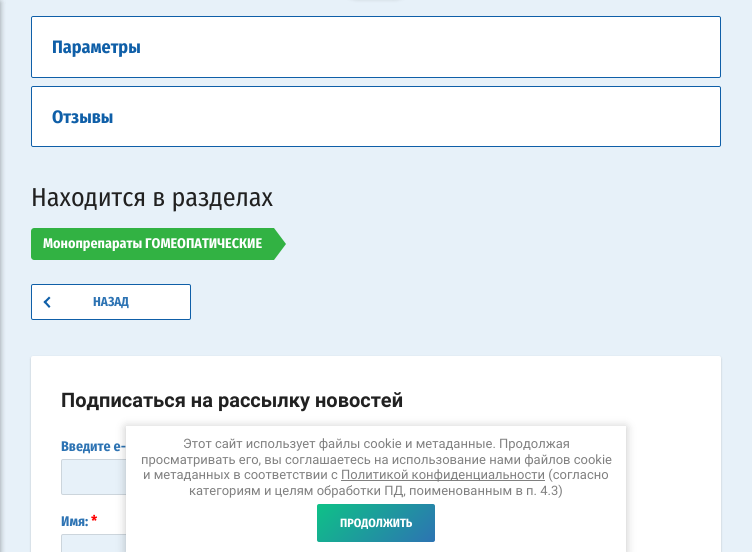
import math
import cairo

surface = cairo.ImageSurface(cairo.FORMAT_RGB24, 752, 552)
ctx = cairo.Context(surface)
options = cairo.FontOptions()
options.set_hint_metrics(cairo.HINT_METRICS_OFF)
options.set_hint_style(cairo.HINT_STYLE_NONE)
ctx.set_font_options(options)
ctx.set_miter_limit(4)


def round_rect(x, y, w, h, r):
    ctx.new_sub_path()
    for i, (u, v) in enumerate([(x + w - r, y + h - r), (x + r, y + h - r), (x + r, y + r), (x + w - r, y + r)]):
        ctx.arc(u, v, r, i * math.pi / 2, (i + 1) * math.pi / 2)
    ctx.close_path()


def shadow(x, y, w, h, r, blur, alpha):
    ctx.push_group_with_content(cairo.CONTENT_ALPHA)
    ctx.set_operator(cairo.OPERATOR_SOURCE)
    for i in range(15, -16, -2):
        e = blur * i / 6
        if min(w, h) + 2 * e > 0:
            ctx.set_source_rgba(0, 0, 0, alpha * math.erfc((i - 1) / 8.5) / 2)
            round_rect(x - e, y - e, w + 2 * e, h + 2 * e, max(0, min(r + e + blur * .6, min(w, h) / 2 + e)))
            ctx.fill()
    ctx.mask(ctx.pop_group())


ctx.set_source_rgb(0.906, 0.945, 0.973)
ctx.paint()
ctx.set_source_rgb(0, 0, 0)
shadow(-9, 2, 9, 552, 0, 3, 0.2)
shadow(-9, 2, 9, 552, 0, 3, 0.2)
shadow(337, -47, 78, 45, 39, 2.5, 0.3)
ctx.set_source_rgb(1, 1, 1)
ctx.rectangle(31, 16, 690, 62)
ctx.fill()
round_rect(31.5, 16.5, 689, 61, 1.5)
ctx.set_source_rgb(0.059, 0.373, 0.659)
ctx.set_line_width(1)
ctx.stroke()
ctx.select_font_face("Fira Sans Condensed", cairo.FONT_SLANT_NORMAL, cairo.FONT_WEIGHT_BOLD)
ctx.set_font_size(18)
ctx.move_to(52, 53)
ctx.show_text("Параметры")
ctx.set_source_rgb(1, 1, 1)
ctx.rectangle(31, 86, 690, 61)
ctx.fill()
round_rect(31.5, 86.5, 689, 60, 1.5)
ctx.set_source_rgb(0.059, 0.373, 0.659)
ctx.stroke()
ctx.move_to(52, 123)
ctx.show_text("Отзывы")
ctx.select_font_face("Fira Sans Condensed")
ctx.set_font_size(26)
ctx.set_source_rgb(0.129, 0.129, 0.129)
ctx.move_to(31, 206)
ctx.show_text("Находится в разделах")
ctx.set_source_rgb(0.196, 0.698, 0.263)
ctx.new_path()
ctx.move_to(34, 228)
ctx.line_to(274, 228)
ctx.line_to(274, 260)
ctx.line_to(34, 260)
ctx.curve_to(32.5, 260, 31, 258.5, 31, 257)
ctx.line_to(31, 231)
ctx.curve_to(31, 229.5, 32.5, 228, 34, 228)
ctx.close_path()
ctx.fill()
ctx.select_font_face("Fira Sans Condensed", cairo.FONT_SLANT_NORMAL, cairo.FONT_WEIGHT_BOLD)
ctx.set_font_size(14)
ctx.set_source_rgb(1, 1, 1)
ctx.move_to(43, 248)
ctx.show_text("Монопрепараты ГОМЕОПАТИЧЕСКИЕ")
ctx.set_source_rgb(0.196, 0.698, 0.263)
ctx.new_path()
ctx.move_to(274, 260)
ctx.line_to(274, 228)
ctx.line_to(286, 244)
ctx.close_path()
ctx.fill()
ctx.set_source_rgb(1, 1, 1)
round_rect(31.5, 284.5, 159, 35, 1.5)
ctx.fill_preserve()
ctx.set_source_rgb(0.059, 0.373, 0.659)
ctx.stroke()
ctx.new_path()
ctx.move_to(43.5, 302)
ctx.line_to(49, 296.5)
ctx.line_to(50.5, 298)
ctx.line_to(45, 303.5)
ctx.close_path()
ctx.fill()
ctx.new_path()
ctx.move_to(43.5, 302)
ctx.line_to(45, 300.5)
ctx.line_to(50.5, 306.5)
ctx.line_to(49, 308)
ctx.close_path()
ctx.fill()
ctx.set_font_size(13)
ctx.set_source_rgb(0.176, 0.451, 0.702)
ctx.move_to(93, 306)
ctx.show_text("НАЗАД")
ctx.set_source_rgb(0, 0, 0)
shadow(31, 357, 690, 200, 2, 1, 0.2)
ctx.set_source_rgb(1, 1, 1)
round_rect(31, 356, 690, 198, 2)
ctx.fill()
ctx.select_font_face("Roboto", cairo.FONT_SLANT_NORMAL, cairo.FONT_WEIGHT_BOLD)
ctx.set_font_size(20)
ctx.set_source_rgb(0.129, 0.129, 0.129)
ctx.move_to(61, 407)
ctx.show_text("Подписаться на рассылку новостей")
ctx.select_font_face("Fira Sans Condensed", cairo.FONT_SLANT_NORMAL, cairo.FONT_WEIGHT_BOLD)
ctx.set_font_size(14)
ctx.set_source_rgb(0.176, 0.451, 0.702)
ctx.move_to(61, 451)
ctx.show_text("Введите e-")
ctx.set_source_rgb(0.906, 0.945, 0.973)
round_rect(61, 459, 384, 36, 2)
ctx.fill()
round_rect(61.5, 459.5, 383, 35, 1.5)
ctx.set_source_rgba(0, 0, 0, 0.12)
ctx.stroke()
ctx.set_source_rgb(0.176, 0.451, 0.702)
ctx.move_to(61, 526)
ctx.show_text("Имя:")
ctx.set_font_size(15)
ctx.set_source_rgb(1, 0, 0)
ctx.move_to(91, 526)
ctx.show_text("*")
ctx.set_source_rgb(0.906, 0.945, 0.973)
round_rect(61, 534, 384, 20, 2)
ctx.fill()
round_rect(61.5, 534.5, 383, 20, 1.5)
ctx.set_source_rgba(0, 0, 0, 0.12)
ctx.stroke()
ctx.set_source_rgb(0, 0, 0)
shadow(126, 427, 500, 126, 0, 5, 0.23)
ctx.set_source_rgb(1, 1, 1)
ctx.rectangle(126, 426, 500, 126)
ctx.fill()
ctx.select_font_face("Roboto")
ctx.set_font_size(13)
ctx.set_source_rgb(0.502, 0.502, 0.502)
ctx.move_to(183, 448)
ctx.show_text("Этот сайт использует файлы cookie и метаданные. Продолжая")
ctx.move_to(141, 464)
ctx.show_text("просматривать его, вы соглашаетесь на использование нами файлов cookie")
ctx.move_to(143, 479)
ctx.show_text("и метаданных в соответствии с")
ctx.rectangle(341, 480, 204, 1)
ctx.fill()
ctx.move_to(341, 479)
ctx.show_text("Политикой конфиденциальности (согласно")
ctx.move_to(189, 495)
ctx.show_text("категориям и целям обработки ПД, поименованным в п. 4.3)")
gradient = cairo.LinearGradient(337, 484, 415, 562)
gradient.add_color_stop_rgba(0, 0.055, 0.757, 0.529, 1)
gradient.add_color_stop_rgba(1, 0.176, 0.451, 0.702, 1)
ctx.set_source(gradient)
round_rect(317, 504, 118, 38, 2)
ctx.fill()
ctx.select_font_face("Fira Sans Condensed", cairo.FONT_SLANT_NORMAL, cairo.FONT_WEIGHT_BOLD)
ctx.set_font_size(12)
ctx.set_source_rgb(1, 1, 1)
ctx.move_to(340, 527)
ctx.show_text("ПРОДОЛЖИТЬ")
surface.write_to_png("page.png")
